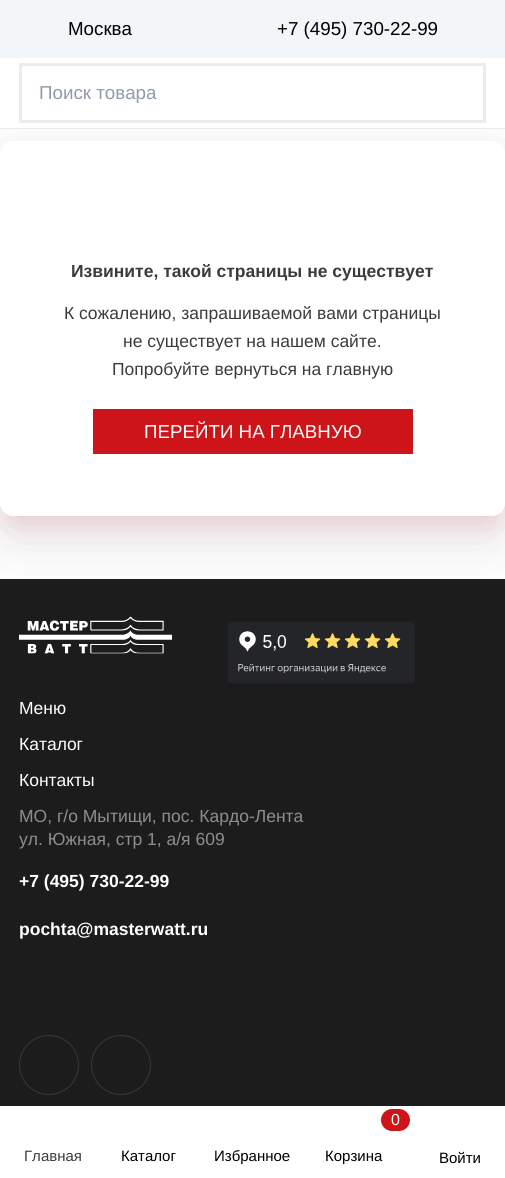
import math
import cairo

surface = cairo.ImageSurface(cairo.FORMAT_RGB24, 505, 1178)
ctx = cairo.Context(surface)
options = cairo.FontOptions()
options.set_hint_metrics(cairo.HINT_METRICS_OFF)
options.set_hint_style(cairo.HINT_STYLE_NONE)
ctx.set_font_options(options)
ctx.set_miter_limit(4)


def round_rect(x, y, w, h, r):
    ctx.new_sub_path()
    for i, (u, v) in enumerate([(x + w - r, y + h - r), (x + r, y + h - r), (x + r, y + r), (x + w - r, y + r)]):
        ctx.arc(u, v, r, i * math.pi / 2, (i + 1) * math.pi / 2)
    ctx.close_path()


def shadow(x, y, w, h, r, blur, alpha):
    ctx.push_group_with_content(cairo.CONTENT_ALPHA)
    ctx.set_operator(cairo.OPERATOR_SOURCE)
    for i in range(15, -16, -2):
        e = blur * i / 6
        if min(w, h) + 2 * e > 0:
            ctx.set_source_rgba(0, 0, 0, alpha * math.erfc((i - 1) / 8.5) / 2)
            round_rect(x - e, y - e, w + 2 * e, h + 2 * e, max(0, min(r + e + blur * .6, min(w, h) / 2 + e)))
            ctx.fill()
    ctx.mask(ctx.pop_group())


def picture(path, x, y, w, h):
    ctx.save()
    ctx.set_source_surface(cairo.ImageSurface.create_from_png(path), x, y)
    ctx.rectangle(x, y, w, h)
    ctx.fill()
    ctx.restore()


ctx.set_source_rgb(1, 1, 1)
ctx.paint()
ctx.save()
ctx.set_fill_rule(cairo.FILL_RULE_EVEN_ODD)
ctx.new_path()
ctx.move_to(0, 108)
ctx.line_to(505, 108)
ctx.line_to(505, 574)
ctx.line_to(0, 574)
ctx.close_path()
ctx.move_to(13, 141)
ctx.line_to(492, 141)
ctx.curve_to(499, 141, 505, 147, 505, 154)
ctx.line_to(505, 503)
ctx.curve_to(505, 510, 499, 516, 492, 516)
ctx.line_to(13, 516)
ctx.curve_to(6, 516, 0, 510, 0, 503)
ctx.line_to(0, 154)
ctx.curve_to(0, 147, 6, 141, 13, 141)
ctx.close_path()
ctx.clip()
ctx.set_source_rgb(0.91, 0.145, 0.145)
shadow(13, 166, 480, 350, 0, 19, 0.28)
ctx.restore()
ctx.save()
ctx.rectangle(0, 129, 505, 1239)
ctx.clip()
ctx.set_fill_rule(cairo.FILL_RULE_EVEN_ODD)
ctx.new_path()
ctx.move_to(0, 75)
ctx.line_to(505, 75)
ctx.line_to(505, 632)
ctx.line_to(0, 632)
ctx.close_path()
ctx.move_to(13, 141)
ctx.line_to(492, 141)
ctx.curve_to(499, 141, 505, 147, 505, 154)
ctx.line_to(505, 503)
ctx.curve_to(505, 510, 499, 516, 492, 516)
ctx.line_to(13, 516)
ctx.curve_to(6, 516, 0, 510, 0, 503)
ctx.line_to(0, 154)
ctx.curve_to(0, 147, 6, 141, 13, 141)
ctx.close_path()
ctx.clip()
ctx.set_source_rgb(0.6, 0.631, 0.667)
shadow(0, 166, 505, 375, 13, 30, 0.25)
ctx.restore()
ctx.set_source_rgb(0.906, 0.918, 0.929)
ctx.rectangle(0, 128, 505, 1)
ctx.fill()
ctx.set_source_rgb(0.953, 0.961, 0.969)
ctx.rectangle(0, 0, 505, 58)
ctx.fill()
ctx.select_font_face("Liberation Sans")
ctx.set_font_size(18.75)
ctx.set_source_rgb(0, 0, 0)
ctx.move_to(68, 35)
ctx.show_text("Москва")
ctx.move_to(277, 35)
ctx.show_text("+7 (495) 730-22-99")
ctx.rectangle(20.5, 64.5, 464, 57)
ctx.set_source_rgb(0.922, 0.925, 0.941)
ctx.set_line_width(3)
ctx.stroke()
ctx.set_source_rgb(0.565, 0.608, 0.659)
ctx.move_to(39, 99)
ctx.show_text("Поиск товара")
ctx.set_font_size(15)
ctx.set_source_rgb(0.22, 0.235, 0.243)
ctx.move_to(24, 1161)
ctx.show_text("Главная")
ctx.set_source_rgb(0, 0, 0)
ctx.move_to(121, 1161)
ctx.show_text("Каталог")
ctx.move_to(214, 1161)
ctx.show_text("Избранное")
ctx.set_source_rgb(0.804, 0.082, 0.094)
round_rect(381, 1109, 29, 22, 11)
ctx.fill()
ctx.set_font_size(16)
ctx.set_source_rgb(1, 1, 1)
ctx.move_to(391, 1125)
ctx.show_text("0")
ctx.set_font_size(15)
ctx.set_source_rgb(0, 0, 0)
ctx.move_to(325, 1161)
ctx.show_text("Корзина")
ctx.move_to(439, 1163)
ctx.show_text("Войти")
ctx.select_font_face("Liberation Sans", cairo.FONT_SLANT_NORMAL, cairo.FONT_WEIGHT_BOLD)
ctx.set_font_size(17.5)
ctx.set_source_rgb(0.22, 0.235, 0.243)
ctx.move_to(71, 277)
ctx.show_text("Извините, такой страницы не существует")
ctx.select_font_face("Liberation Sans")
ctx.move_to(64, 319)
ctx.show_text("К сожалению, запрашиваемой вами страницы")
ctx.move_to(123, 347)
ctx.show_text("не существует на нашем сайте.")
ctx.move_to(112, 375)
ctx.show_text("Попробуйте вернуться на главную")
ctx.set_source_rgb(0.804, 0.082, 0.094)
ctx.rectangle(93, 409, 320, 45)
ctx.fill()
ctx.set_font_size(18.75)
ctx.set_source_rgb(1, 1, 1)
ctx.move_to(144, 438)
ctx.show_text("ПЕРЕЙТИ НА ГЛАВНУЮ")
ctx.set_source_rgb(0.11, 0.11, 0.11)
ctx.rectangle(0, 579, 505, 527)
ctx.fill()
picture("img1.png", 19, 616, 153, 38)
picture("img2.png", 228, 621, 187, 63)
ctx.set_font_size(17.5)
ctx.set_source_rgb(1, 1, 1)
ctx.move_to(19, 714)
ctx.show_text("Меню")
ctx.move_to(19, 750)
ctx.show_text("Каталог")
ctx.move_to(19, 786)
ctx.show_text("Контакты")
ctx.set_source_rgb(0.557, 0.557, 0.557)
ctx.move_to(19, 822)
ctx.show_text("МО, г/о Мытищи, пос. Кардо-Лента")
ctx.move_to(19, 845)
ctx.show_text("ул. Южная, стр 1, а/я 609")
ctx.select_font_face("Liberation Sans", cairo.FONT_SLANT_NORMAL, cairo.FONT_WEIGHT_BOLD)
ctx.set_source_rgb(1, 1, 1)
ctx.move_to(19, 887)
ctx.show_text("+7 (495) 730-22-99")
ctx.move_to(19, 935)
ctx.show_text("pochta@masterwatt.ru")
ctx.new_path()
ctx.arc(49, 1065, 29.5, 0, 2 * math.pi)
ctx.set_source_rgb(0.216, 0.216, 0.216)
ctx.set_line_width(1)
ctx.stroke()
ctx.arc(121, 1065, 29.5, 0, 2 * math.pi)
ctx.stroke()
surface.write_to_png("page.png")
